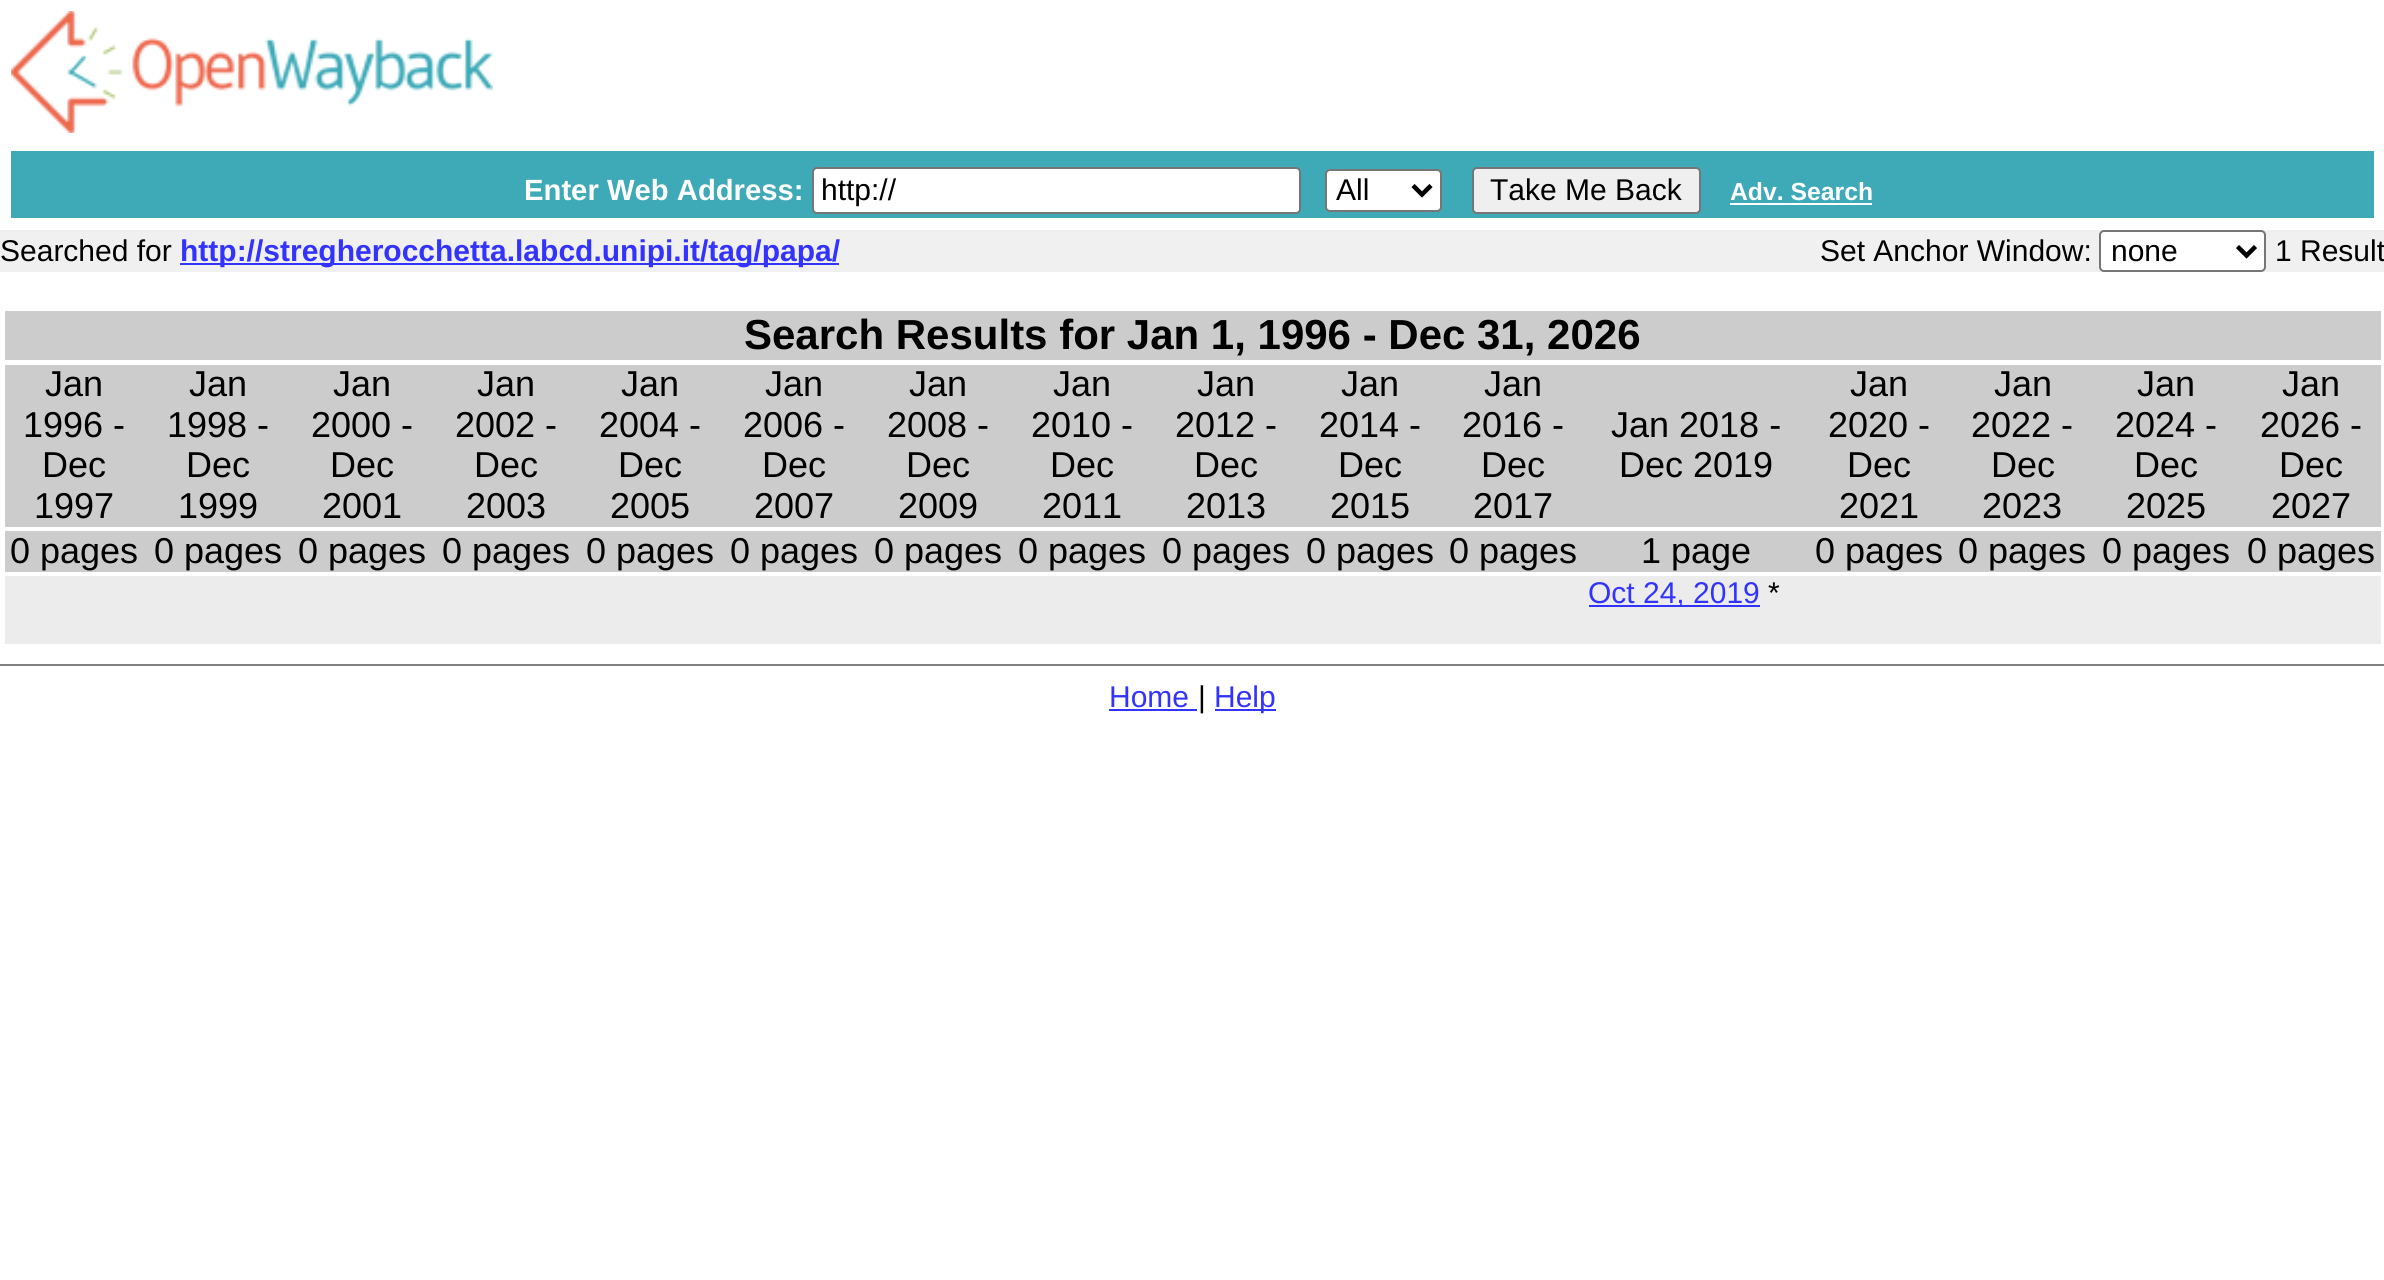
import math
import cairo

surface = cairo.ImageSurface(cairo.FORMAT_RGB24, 2384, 1280)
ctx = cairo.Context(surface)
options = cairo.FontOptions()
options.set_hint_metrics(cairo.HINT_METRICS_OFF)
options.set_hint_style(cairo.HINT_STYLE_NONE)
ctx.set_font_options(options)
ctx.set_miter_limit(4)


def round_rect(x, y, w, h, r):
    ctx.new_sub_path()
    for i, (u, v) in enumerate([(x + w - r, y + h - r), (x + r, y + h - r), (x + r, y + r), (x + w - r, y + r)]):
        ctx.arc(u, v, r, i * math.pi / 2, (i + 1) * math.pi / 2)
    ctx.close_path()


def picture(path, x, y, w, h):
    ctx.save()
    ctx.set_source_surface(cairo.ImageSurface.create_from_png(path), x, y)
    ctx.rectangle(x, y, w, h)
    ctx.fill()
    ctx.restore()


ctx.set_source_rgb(1, 1, 1)
ctx.paint()
picture("img1.png", 11, 11, 482, 122)
ctx.set_source_rgb(0.243, 0.667, 0.722)
ctx.rectangle(11, 151, 2363, 67)
ctx.fill()
ctx.select_font_face("Liberation Sans", cairo.FONT_SLANT_NORMAL, cairo.FONT_WEIGHT_BOLD)
ctx.set_font_size(29.25)
ctx.set_source_rgb(1, 1, 1)
ctx.move_to(524, 200)
ctx.show_text("Enter Web Address:")
round_rect(813, 168, 487, 45, 4)
ctx.fill_preserve()
ctx.set_source_rgb(0.463, 0.463, 0.463)
ctx.stroke()
ctx.select_font_face("Liberation Sans")
ctx.set_font_size(30)
ctx.set_source_rgb(0, 0, 0)
ctx.move_to(821, 200)
ctx.show_text("http://")
ctx.set_source_rgb(1, 1, 1)
round_rect(1326, 170, 115, 41, 4)
ctx.fill_preserve()
ctx.set_source_rgb(0.463, 0.463, 0.463)
ctx.stroke()
ctx.new_path()
ctx.move_to(1413, 185.5)
ctx.line_to(1422, 194.5)
ctx.line_to(1431, 185.5)
ctx.set_source_rgb(0, 0, 0)
ctx.set_line_width(4.5)
ctx.stroke()
ctx.move_to(1336, 200)
ctx.show_text("All")
ctx.set_source_rgb(0.937, 0.937, 0.937)
round_rect(1473, 168, 227, 45, 4)
ctx.fill_preserve()
ctx.set_source_rgb(0.463, 0.463, 0.463)
ctx.set_line_width(2)
ctx.stroke()
ctx.set_source_rgb(0, 0, 0)
ctx.move_to(1490, 200)
ctx.show_text("Take Me Back")
ctx.select_font_face("Liberation Sans", cairo.FONT_SLANT_NORMAL, cairo.FONT_WEIGHT_BOLD)
ctx.set_font_size(24.75)
ctx.set_source_rgb(1, 1, 1)
ctx.move_to(1730, 200)
ctx.show_text("Adv. Search")
ctx.rectangle(1730, 203, 142, 2)
ctx.fill()
ctx.set_source_rgb(0.941, 0.941, 0.941)
ctx.rectangle(0, 230, 2384, 42)
ctx.fill()
ctx.select_font_face("Liberation Sans")
ctx.set_font_size(30)
ctx.set_source_rgb(0, 0, 0)
ctx.move_to(0, 261)
ctx.show_text("Searched for")
ctx.set_source_rgb(0.2, 0.2, 1)
ctx.rectangle(180, 263, 659, 2)
ctx.fill()
ctx.select_font_face("Liberation Sans", cairo.FONT_SLANT_NORMAL, cairo.FONT_WEIGHT_BOLD)
ctx.move_to(180, 261)
ctx.show_text("http://stregherocchetta.labcd.unipi.it/tag/papa/")
ctx.select_font_face("Liberation Sans")
ctx.set_source_rgb(0, 0, 0)
ctx.move_to(1820, 261)
ctx.show_text("Set Anchor Window:")
ctx.set_source_rgb(1, 1, 1)
round_rect(2100, 231, 165, 40, 4)
ctx.fill_preserve()
ctx.set_source_rgb(0.463, 0.463, 0.463)
ctx.stroke()
ctx.new_path()
ctx.move_to(2237.5, 246.5)
ctx.line_to(2246.5, 255.5)
ctx.line_to(2255.5, 246.5)
ctx.set_source_rgb(0, 0, 0)
ctx.set_line_width(4.5)
ctx.stroke()
ctx.move_to(2111, 261)
ctx.show_text("none")
ctx.move_to(2275, 261)
ctx.show_text("1 Result")
ctx.set_source_rgb(0.8, 0.8, 0.8)
ctx.rectangle(5, 311, 2376, 49)
ctx.fill()
ctx.select_font_face("Liberation Sans", cairo.FONT_SLANT_NORMAL, cairo.FONT_WEIGHT_BOLD)
ctx.set_font_size(42)
ctx.set_source_rgb(0, 0, 0)
ctx.move_to(744, 349)
ctx.show_text("Search Results for Jan 1, 1996 - Dec 31, 2026")
ctx.set_source_rgb(0.8, 0.8, 0.8)
ctx.rectangle(5, 365, 2376, 162)
ctx.fill()
ctx.select_font_face("Liberation Sans")
ctx.set_font_size(36)
ctx.set_source_rgb(0, 0, 0)
ctx.move_to(45, 396)
ctx.show_text("Jan")
ctx.move_to(23, 437)
ctx.show_text("1996 -")
ctx.move_to(42, 477)
ctx.show_text("Dec")
ctx.move_to(34, 518)
ctx.show_text("1997")
ctx.move_to(189, 396)
ctx.show_text("Jan")
ctx.move_to(167, 437)
ctx.show_text("1998 -")
ctx.move_to(186, 477)
ctx.show_text("Dec")
ctx.move_to(178, 518)
ctx.show_text("1999")
ctx.move_to(333, 396)
ctx.show_text("Jan")
ctx.move_to(311, 437)
ctx.show_text("2000 -")
ctx.move_to(330, 477)
ctx.show_text("Dec")
ctx.move_to(322, 518)
ctx.show_text("2001")
ctx.move_to(477, 396)
ctx.show_text("Jan")
ctx.move_to(455, 437)
ctx.show_text("2002 -")
ctx.move_to(474, 477)
ctx.show_text("Dec")
ctx.move_to(466, 518)
ctx.show_text("2003")
ctx.move_to(621, 396)
ctx.show_text("Jan")
ctx.move_to(599, 437)
ctx.show_text("2004 -")
ctx.move_to(618, 477)
ctx.show_text("Dec")
ctx.move_to(610, 518)
ctx.show_text("2005")
ctx.move_to(765, 396)
ctx.show_text("Jan")
ctx.move_to(743, 437)
ctx.show_text("2006 -")
ctx.move_to(762, 477)
ctx.show_text("Dec")
ctx.move_to(754, 518)
ctx.show_text("2007")
ctx.move_to(909, 396)
ctx.show_text("Jan")
ctx.move_to(887, 437)
ctx.show_text("2008 -")
ctx.move_to(906, 477)
ctx.show_text("Dec")
ctx.move_to(898, 518)
ctx.show_text("2009")
ctx.move_to(1053, 396)
ctx.show_text("Jan")
ctx.move_to(1031, 437)
ctx.show_text("2010 -")
ctx.move_to(1050, 477)
ctx.show_text("Dec")
ctx.move_to(1042, 518)
ctx.show_text("2011")
ctx.move_to(1197, 396)
ctx.show_text("Jan")
ctx.move_to(1175, 437)
ctx.show_text("2012 -")
ctx.move_to(1194, 477)
ctx.show_text("Dec")
ctx.move_to(1186, 518)
ctx.show_text("2013")
ctx.move_to(1341, 396)
ctx.show_text("Jan")
ctx.move_to(1319, 437)
ctx.show_text("2014 -")
ctx.move_to(1338, 477)
ctx.show_text("Dec")
ctx.move_to(1330, 518)
ctx.show_text("2015")
ctx.move_to(1484, 396)
ctx.show_text("Jan")
ctx.move_to(1462, 437)
ctx.show_text("2016 -")
ctx.move_to(1481, 477)
ctx.show_text("Dec")
ctx.move_to(1473, 518)
ctx.show_text("2017")
ctx.move_to(1611, 437)
ctx.show_text("Jan 2018 -")
ctx.move_to(1619, 477)
ctx.show_text("Dec 2019")
ctx.move_to(1850, 396)
ctx.show_text("Jan")
ctx.move_to(1828, 437)
ctx.show_text("2020 -")
ctx.move_to(1847, 477)
ctx.show_text("Dec")
ctx.move_to(1839, 518)
ctx.show_text("2021")
ctx.move_to(1994, 396)
ctx.show_text("Jan")
ctx.move_to(1971, 437)
ctx.show_text("2022 -")
ctx.move_to(1991, 477)
ctx.show_text("Dec")
ctx.move_to(1982, 518)
ctx.show_text("2023")
ctx.move_to(2137, 396)
ctx.show_text("Jan")
ctx.move_to(2115, 437)
ctx.show_text("2024 -")
ctx.move_to(2134, 477)
ctx.show_text("Dec")
ctx.move_to(2126, 518)
ctx.show_text("2025")
ctx.move_to(2282, 396)
ctx.show_text("Jan")
ctx.move_to(2260, 437)
ctx.show_text("2026 -")
ctx.move_to(2279, 477)
ctx.show_text("Dec")
ctx.move_to(2271, 518)
ctx.show_text("2027")
ctx.set_source_rgb(0.8, 0.8, 0.8)
ctx.rectangle(5, 531, 2376, 41)
ctx.fill()
ctx.set_source_rgb(0, 0, 0)
ctx.move_to(10, 563)
ctx.show_text("0 pages")
ctx.move_to(154, 563)
ctx.show_text("0 pages")
ctx.move_to(298, 563)
ctx.show_text("0 pages")
ctx.move_to(442, 563)
ctx.show_text("0 pages")
ctx.move_to(586, 563)
ctx.show_text("0 pages")
ctx.move_to(730, 563)
ctx.show_text("0 pages")
ctx.move_to(874, 563)
ctx.show_text("0 pages")
ctx.move_to(1018, 563)
ctx.show_text("0 pages")
ctx.move_to(1162, 563)
ctx.show_text("0 pages")
ctx.move_to(1306, 563)
ctx.show_text("0 pages")
ctx.move_to(1449, 563)
ctx.show_text("0 pages")
ctx.move_to(1641, 563)
ctx.show_text("1 page")
ctx.move_to(1815, 563)
ctx.show_text("0 pages")
ctx.move_to(1958, 563)
ctx.show_text("0 pages")
ctx.move_to(2102, 563)
ctx.show_text("0 pages")
ctx.move_to(2247, 563)
ctx.show_text("0 pages")
ctx.set_source_rgb(0.922, 0.922, 0.922)
ctx.rectangle(5, 576, 2376, 68)
ctx.fill()
ctx.set_source_rgb(0.2, 0.2, 1)
ctx.rectangle(1589, 605, 171, 2)
ctx.fill()
ctx.set_font_size(30)
ctx.move_to(1588, 603)
ctx.show_text("Oct 24, 2019")
ctx.set_source_rgb(0, 0, 0)
ctx.move_to(1768, 603)
ctx.show_text("*")
ctx.set_source_rgb(0.502, 0.502, 0.502)
ctx.rectangle(0, 664, 2384, 2)
ctx.fill()
ctx.set_source_rgb(0.2, 0.2, 1)
ctx.move_to(1109, 707)
ctx.show_text("Home")
ctx.rectangle(1109, 709, 88, 2)
ctx.fill()
ctx.set_source_rgb(0, 0, 0)
ctx.move_to(1198, 707)
ctx.show_text("|")
ctx.set_source_rgb(0.2, 0.2, 1)
ctx.rectangle(1215, 709, 61, 2)
ctx.fill()
ctx.move_to(1214, 707)
ctx.show_text("Help")
surface.write_to_png("page.png")
